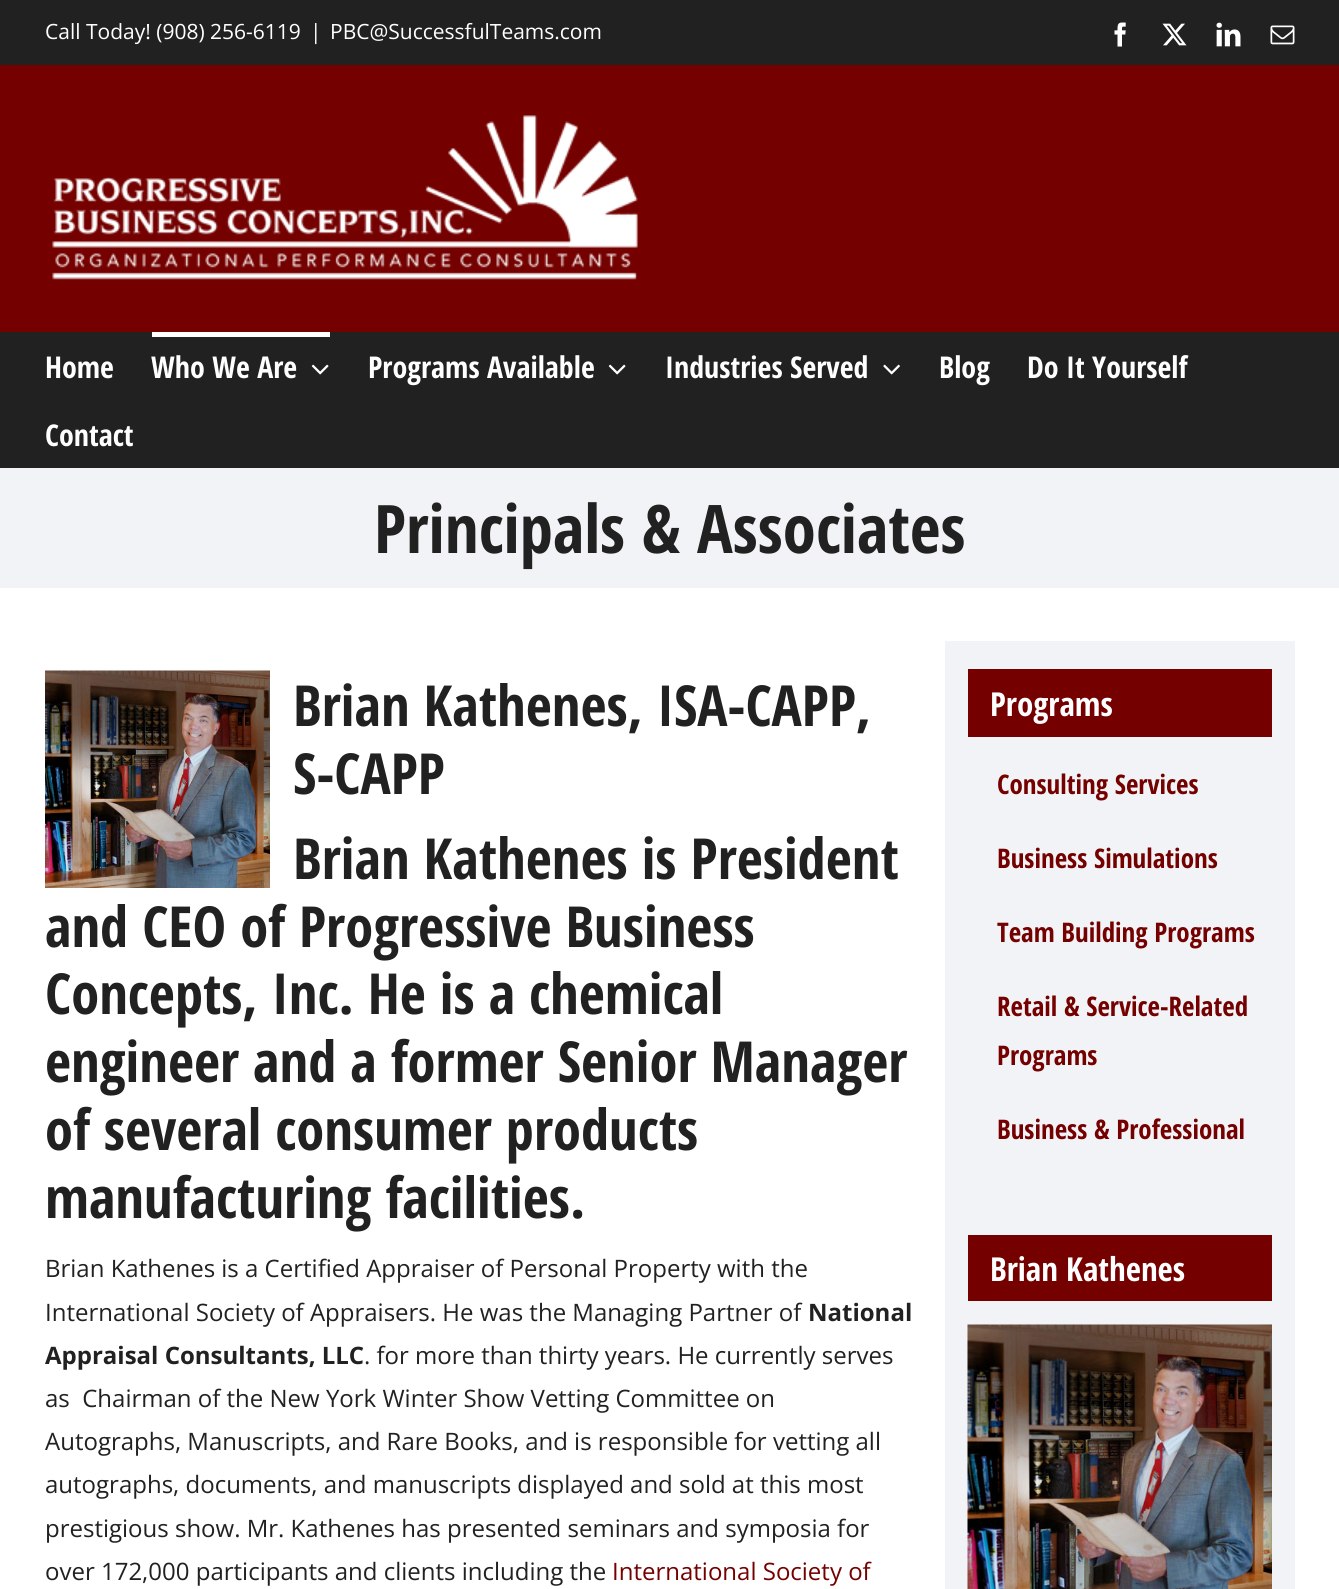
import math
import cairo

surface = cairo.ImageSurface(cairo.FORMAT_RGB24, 1339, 1589)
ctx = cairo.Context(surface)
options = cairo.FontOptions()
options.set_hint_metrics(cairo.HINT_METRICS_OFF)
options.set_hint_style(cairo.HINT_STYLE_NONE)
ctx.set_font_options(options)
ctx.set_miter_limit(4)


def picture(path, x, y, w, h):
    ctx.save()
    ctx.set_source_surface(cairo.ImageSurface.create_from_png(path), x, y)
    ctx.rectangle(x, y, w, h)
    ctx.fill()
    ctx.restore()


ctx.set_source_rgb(1, 1, 1)
ctx.paint()
ctx.set_source_rgb(0.129, 0.129, 0.129)
ctx.rectangle(0, 0, 1339, 65)
ctx.fill()
ctx.select_font_face("Open Sans")
ctx.set_font_size(21)
ctx.set_source_rgb(1, 1, 1)
ctx.move_to(45, 39)
ctx.show_text("Call Today! (908) 256-6119")
ctx.move_to(310, 39)
ctx.show_text("|")
ctx.move_to(330, 39)
ctx.show_text("PBC@SuccessfulTeams.com")
picture("img1.png", 1114, 22, 12, 25)
picture("img2.png", 1162, 23, 25, 23)
picture("img3.png", 1216, 22, 25, 25)
picture("img4.png", 1270, 25, 25, 20)
ctx.set_source_rgb(0.455, 0, 0)
ctx.rectangle(0, 65, 1339, 267)
ctx.fill()
picture("img5.png", 52, 115, 586, 165)
ctx.set_source_rgb(0.129, 0.129, 0.129)
ctx.rectangle(0, 332, 1339, 136)
ctx.fill()
ctx.select_font_face("Open Sans Condensed", cairo.FONT_SLANT_NORMAL, cairo.FONT_WEIGHT_BOLD)
ctx.set_font_size(30)
ctx.set_source_rgb(1, 1, 1)
ctx.move_to(45, 378)
ctx.show_text("Home")
ctx.rectangle(152, 332, 178, 5)
ctx.fill()
ctx.move_to(151, 378)
ctx.show_text("Who We Are")
picture("img6.png", 311, 364, 18, 11)
ctx.move_to(368, 378)
ctx.show_text("Programs Available")
picture("img6.png", 608, 364, 18, 11)
ctx.move_to(665, 378)
ctx.show_text("Industries Served")
picture("img7.png", 883, 364, 17, 11)
ctx.move_to(939, 378)
ctx.show_text("Blog")
ctx.move_to(1027, 378)
ctx.show_text("Do It Yourself")
ctx.move_to(45, 446)
ctx.show_text("Contact")
ctx.set_source_rgb(0.949, 0.953, 0.961)
ctx.rectangle(0, 468, 1339, 120)
ctx.fill()
ctx.set_font_size(66.9)
ctx.set_source_rgb(0.129, 0.129, 0.129)
ctx.move_to(374, 553)
ctx.show_text("Principals & Associates")
picture("img8.png", 45, 670, 225, 218)
ctx.set_font_size(56.6)
ctx.move_to(293, 726)
ctx.show_text("Brian Kathenes, ISA-CAPP,")
ctx.move_to(293, 794)
ctx.show_text("S-CAPP")
ctx.move_to(293, 879)
ctx.show_text("Brian Kathenes is President")
ctx.move_to(45, 947)
ctx.show_text("and CEO of Progressive Business")
ctx.move_to(45, 1014)
ctx.show_text("Concepts, Inc. He is a chemical")
ctx.move_to(45, 1082)
ctx.show_text("engineer and a former Senior Manager")
ctx.move_to(45, 1150)
ctx.show_text("of several consumer products")
ctx.move_to(45, 1218)
ctx.show_text("manufacturing facilities.")
ctx.select_font_face("Open Sans")
ctx.set_font_size(24)
ctx.move_to(45, 1277)
ctx.show_text("Brian Kathenes is a Certified Appraiser of Personal Property with the")
ctx.move_to(45, 1321)
ctx.show_text("International Society of Appraisers. He was the Managing Partner of")
ctx.select_font_face("Open Sans", cairo.FONT_SLANT_NORMAL, cairo.FONT_WEIGHT_BOLD)
ctx.move_to(808, 1321)
ctx.show_text("National")
ctx.move_to(45, 1364)
ctx.show_text("Appraisal Consultants, LLC")
ctx.select_font_face("Open Sans")
ctx.move_to(364, 1364)
ctx.show_text(". for more than thirty years. He currently serves")
ctx.move_to(45, 1407)
ctx.show_text("as  Chairman of the New York Winter Show Vetting Committee on")
ctx.move_to(45, 1450)
ctx.show_text("Autographs, Manuscripts, and Rare Books, and is responsible for vetting all")
ctx.move_to(45, 1493)
ctx.show_text("autographs, documents, and manuscripts displayed and sold at this most")
ctx.move_to(45, 1537)
ctx.show_text("prestigious show. Mr. Kathenes has presented seminars and symposia for")
ctx.move_to(45, 1580)
ctx.show_text("over 172,000 participants and clients including the")
ctx.set_source_rgb(0.455, 0, 0)
ctx.move_to(612, 1580)
ctx.show_text("International Society of")
ctx.set_source_rgb(0.949, 0.953, 0.961)
ctx.rectangle(945, 641, 350, 948)
ctx.fill()
ctx.set_source_rgb(0.455, 0, 0)
ctx.rectangle(968, 669, 304, 68)
ctx.fill()
ctx.select_font_face("Open Sans Condensed", cairo.FONT_SLANT_NORMAL, cairo.FONT_WEIGHT_BOLD)
ctx.set_font_size(33)
ctx.set_source_rgb(1, 1, 1)
ctx.move_to(990, 716)
ctx.show_text("Programs")
ctx.set_font_size(27)
ctx.set_source_rgb(0.455, 0, 0)
ctx.move_to(997, 794)
ctx.show_text("Consulting Services")
ctx.move_to(997, 868)
ctx.show_text("Business Simulations")
ctx.move_to(997, 942)
ctx.show_text("Team Building Programs")
ctx.move_to(997, 1016)
ctx.show_text("Retail & Service-Related")
ctx.move_to(997, 1065)
ctx.show_text("Programs")
ctx.move_to(997, 1139)
ctx.show_text("Business & Professional")
ctx.rectangle(968, 1235, 304, 66)
ctx.fill()
ctx.set_font_size(33)
ctx.set_source_rgb(1, 1, 1)
ctx.move_to(990, 1281)
ctx.show_text("Brian Kathenes")
picture("img9.png", 967, 1324, 305, 265)
surface.write_to_png("page.png")
